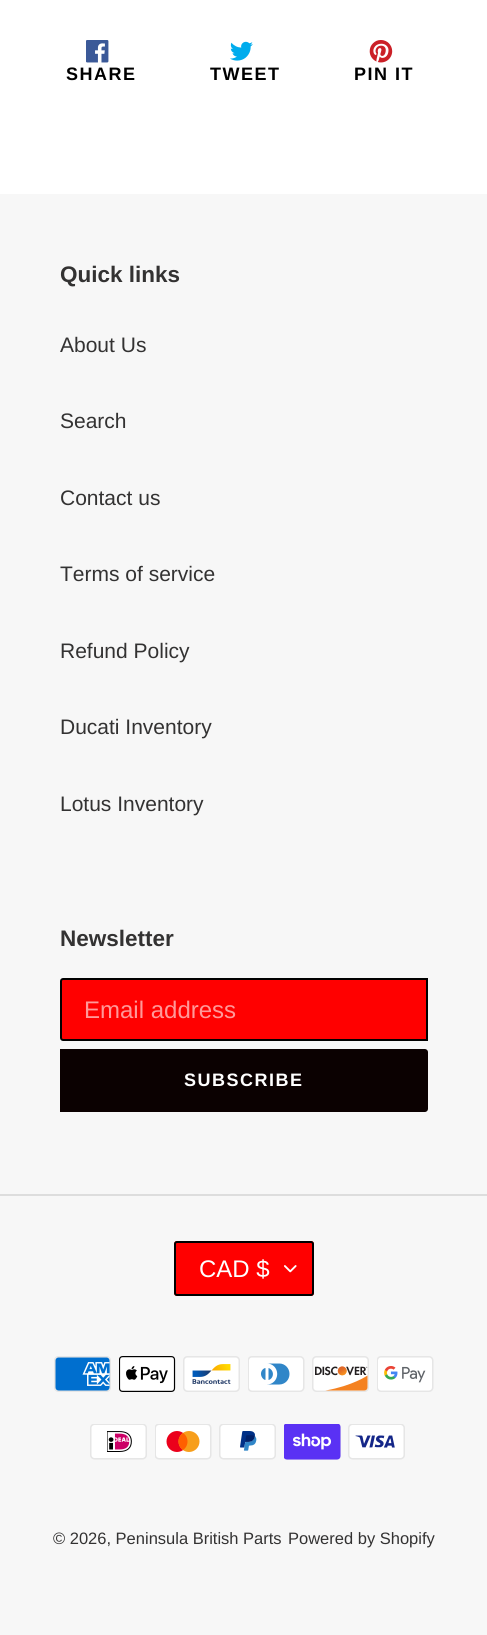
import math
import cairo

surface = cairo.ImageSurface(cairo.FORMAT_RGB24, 487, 1635)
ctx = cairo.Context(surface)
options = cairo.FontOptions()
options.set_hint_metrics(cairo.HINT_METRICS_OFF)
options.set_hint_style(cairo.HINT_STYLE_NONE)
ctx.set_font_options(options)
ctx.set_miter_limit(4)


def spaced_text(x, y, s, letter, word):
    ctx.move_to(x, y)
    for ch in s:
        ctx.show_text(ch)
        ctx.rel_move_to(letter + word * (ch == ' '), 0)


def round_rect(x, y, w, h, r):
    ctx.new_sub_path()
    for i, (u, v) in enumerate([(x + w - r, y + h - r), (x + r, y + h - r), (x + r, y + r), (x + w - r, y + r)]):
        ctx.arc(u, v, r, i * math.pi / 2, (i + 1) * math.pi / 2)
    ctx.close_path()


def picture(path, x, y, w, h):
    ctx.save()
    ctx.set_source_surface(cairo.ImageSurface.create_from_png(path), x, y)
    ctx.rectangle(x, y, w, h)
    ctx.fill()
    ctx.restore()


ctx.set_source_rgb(1, 1, 1)
ctx.paint()
picture("img1.png", 86, 40, 23, 23)
ctx.select_font_face("Liberation Sans", cairo.FONT_SLANT_NORMAL, cairo.FONT_WEIGHT_BOLD)
ctx.set_font_size(18)
ctx.set_source_rgb(0, 0, 0)
spaced_text(66, 80, "SHARE", 1.5, 0)
picture("img2.png", 230, 41, 23, 20)
spaced_text(210, 80, "TWEET", 1.5, 0)
picture("img3.png", 369, 40, 24, 23)
spaced_text(354, 80, "PIN IT", 1.5, 0)
ctx.set_source_rgb(0.965, 0.965, 0.965)
ctx.rectangle(0, 194, 487, 1441)
ctx.fill()
ctx.set_font_size(22.5)
ctx.set_source_rgb(0.2, 0.196, 0.196)
ctx.move_to(60, 282)
ctx.show_text("Quick links")
ctx.select_font_face("Liberation Sans")
ctx.set_font_size(21)
ctx.move_to(60, 352)
ctx.show_text("About Us")
ctx.move_to(60, 428)
ctx.show_text("Search")
ctx.move_to(60, 505)
ctx.show_text("Contact us")
ctx.move_to(60, 581)
ctx.show_text("Terms of service")
ctx.move_to(60, 658)
ctx.show_text("Refund Policy")
ctx.move_to(60, 734)
ctx.show_text("Ducati Inventory")
ctx.move_to(60, 811)
ctx.show_text("Lotus Inventory")
ctx.select_font_face("Liberation Sans", cairo.FONT_SLANT_NORMAL, cairo.FONT_WEIGHT_BOLD)
ctx.set_font_size(22.5)
ctx.move_to(60, 946)
ctx.show_text("Newsletter")
ctx.set_source_rgb(1, 0, 0)
ctx.new_path()
ctx.move_to(63, 979)
ctx.line_to(427, 979)
ctx.line_to(427, 1040)
ctx.line_to(63, 1040)
ctx.curve_to(62, 1040, 61, 1039, 61, 1038)
ctx.line_to(61, 981)
ctx.curve_to(61, 980, 62, 979, 63, 979)
ctx.close_path()
ctx.fill_preserve()
ctx.set_source_rgb(0, 0, 0)
ctx.stroke()
ctx.select_font_face("Liberation Sans")
ctx.set_font_size(24)
ctx.set_source_rgb(1, 0.6, 0.6)
ctx.move_to(84, 1018)
ctx.show_text("Email address")
ctx.set_source_rgb(0.043, 0.004, 0.004)
ctx.new_path()
ctx.move_to(60, 1049)
ctx.line_to(425, 1049)
ctx.curve_to(426.5, 1049, 428, 1050.5, 428, 1052)
ctx.line_to(428, 1109)
ctx.curve_to(428, 1110.5, 426.5, 1112, 425, 1112)
ctx.line_to(60, 1112)
ctx.close_path()
ctx.fill()
ctx.select_font_face("Liberation Sans", cairo.FONT_SLANT_NORMAL, cairo.FONT_WEIGHT_BOLD)
ctx.set_font_size(18)
ctx.set_source_rgb(1, 1, 1)
spaced_text(184, 1086, "SUBSCRIBE", 1.5, 0)
ctx.set_source_rgb(0.867, 0.867, 0.867)
ctx.rectangle(0, 1194, 487, 2)
ctx.fill()
ctx.set_source_rgb(1, 0, 0)
round_rect(174, 1241, 140, 55, 3)
ctx.fill()
picture("img4.png", 284, 1265, 13, 8)
round_rect(175, 1242, 138, 53, 2)
ctx.set_source_rgb(0, 0, 0)
ctx.stroke()
ctx.select_font_face("Liberation Sans")
ctx.set_font_size(24)
ctx.set_source_rgb(1, 1, 1)
ctx.move_to(199, 1277)
ctx.show_text("CAD $")
picture("img5.png", 54, 1356, 57, 36)
picture("img6.png", 119, 1356, 57, 36)
picture("img7.png", 183, 1356, 57, 36)
picture("img8.png", 248, 1356, 57, 36)
picture("img9.png", 312, 1356, 57, 36)
picture("img10.png", 377, 1356, 57, 36)
picture("img11.png", 90, 1424, 57, 36)
picture("img12.png", 155, 1424, 57, 36)
picture("img13.png", 219, 1424, 57, 36)
picture("img14.png", 284, 1424, 57, 36)
picture("img15.png", 348, 1424, 57, 36)
ctx.set_font_size(16.5)
ctx.set_source_rgb(0.2, 0.196, 0.196)
ctx.move_to(53, 1544)
ctx.show_text("© 2026, Peninsula British Parts")
ctx.move_to(288, 1544)
ctx.show_text("Powered by Shopify")
surface.write_to_png("page.png")
